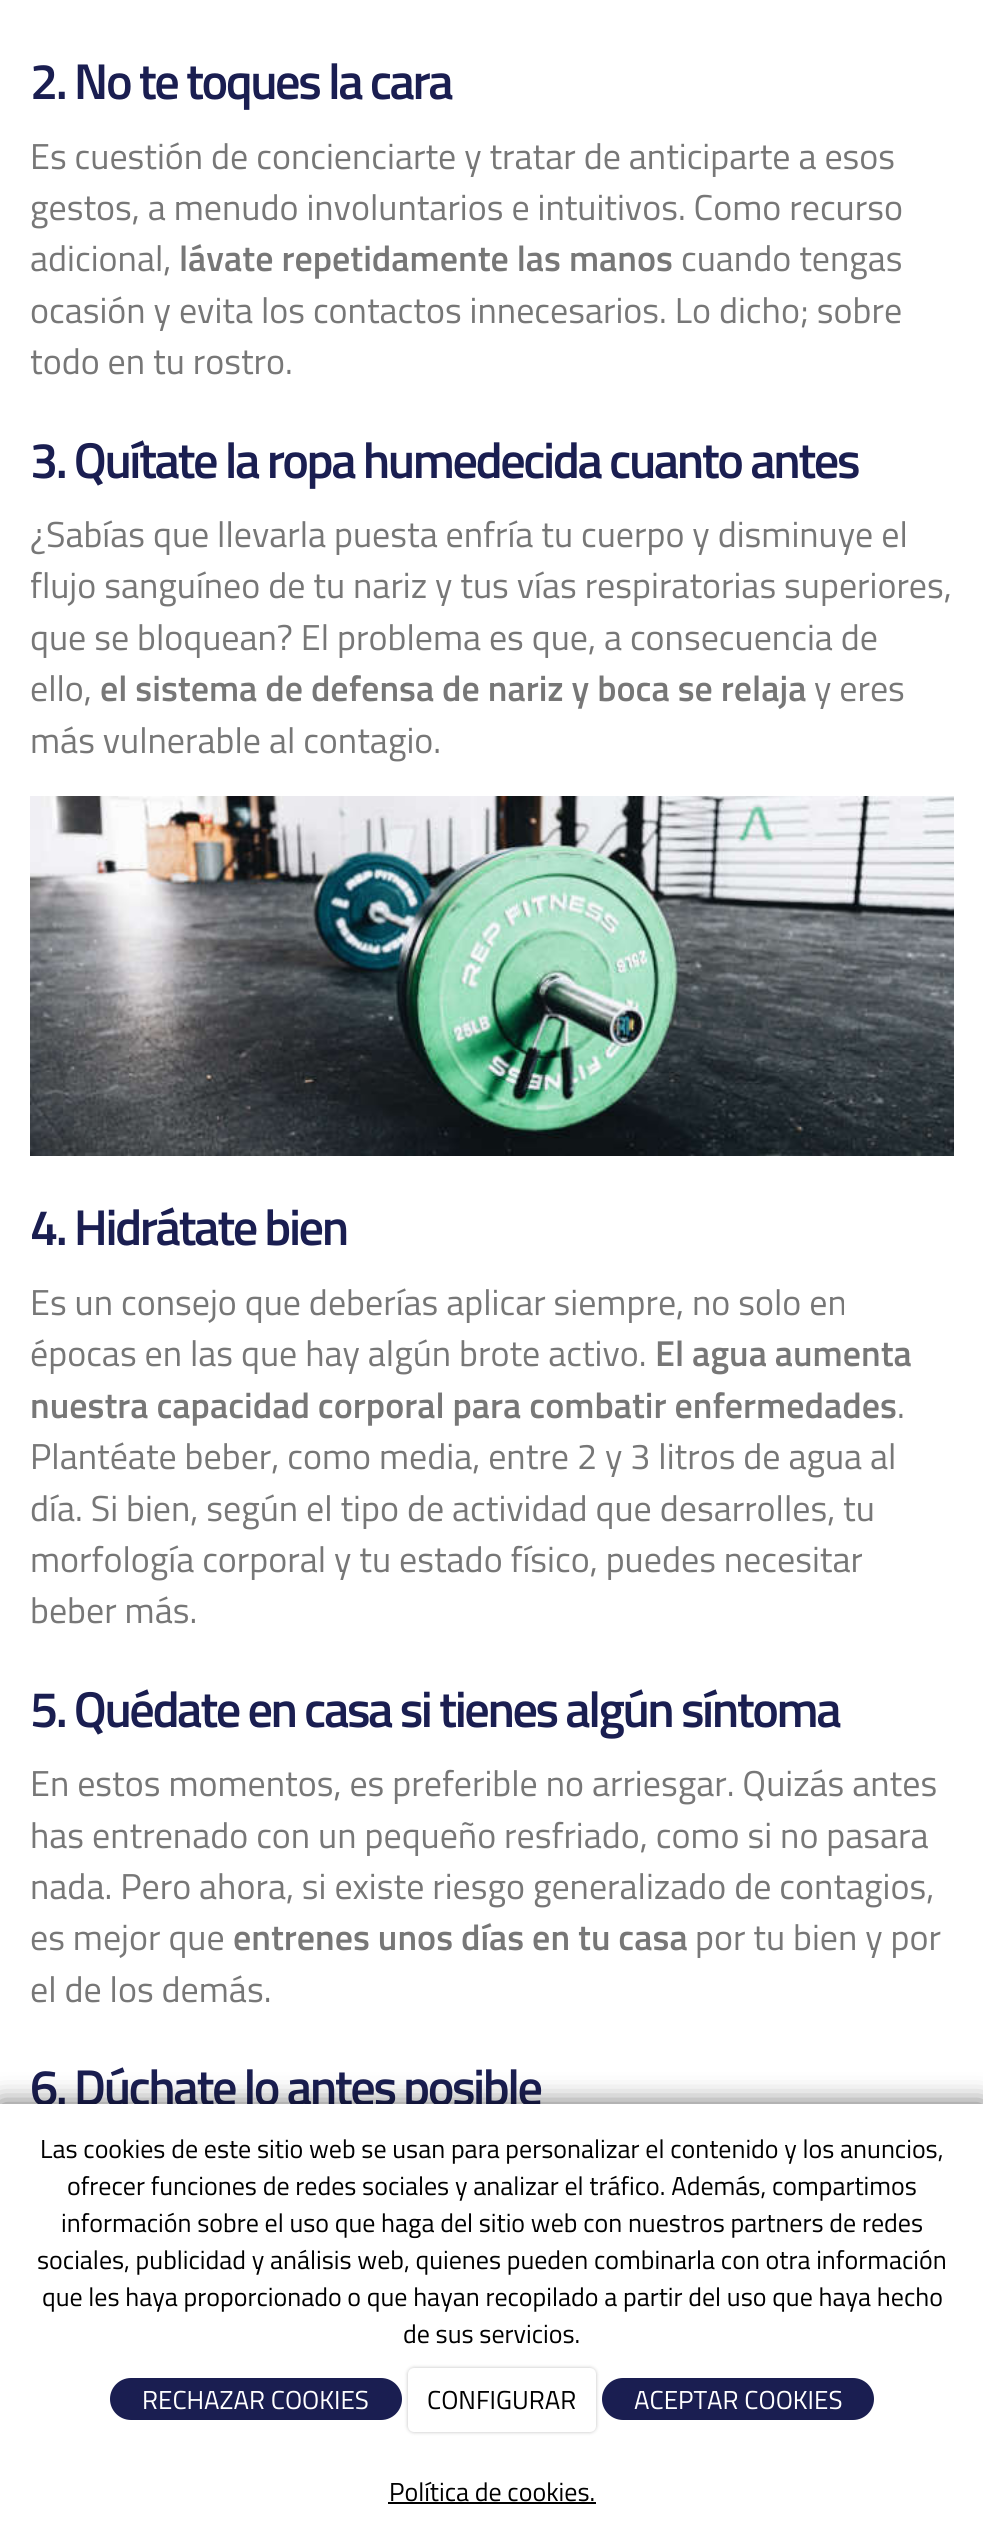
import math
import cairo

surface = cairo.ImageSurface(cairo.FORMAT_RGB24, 983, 2536)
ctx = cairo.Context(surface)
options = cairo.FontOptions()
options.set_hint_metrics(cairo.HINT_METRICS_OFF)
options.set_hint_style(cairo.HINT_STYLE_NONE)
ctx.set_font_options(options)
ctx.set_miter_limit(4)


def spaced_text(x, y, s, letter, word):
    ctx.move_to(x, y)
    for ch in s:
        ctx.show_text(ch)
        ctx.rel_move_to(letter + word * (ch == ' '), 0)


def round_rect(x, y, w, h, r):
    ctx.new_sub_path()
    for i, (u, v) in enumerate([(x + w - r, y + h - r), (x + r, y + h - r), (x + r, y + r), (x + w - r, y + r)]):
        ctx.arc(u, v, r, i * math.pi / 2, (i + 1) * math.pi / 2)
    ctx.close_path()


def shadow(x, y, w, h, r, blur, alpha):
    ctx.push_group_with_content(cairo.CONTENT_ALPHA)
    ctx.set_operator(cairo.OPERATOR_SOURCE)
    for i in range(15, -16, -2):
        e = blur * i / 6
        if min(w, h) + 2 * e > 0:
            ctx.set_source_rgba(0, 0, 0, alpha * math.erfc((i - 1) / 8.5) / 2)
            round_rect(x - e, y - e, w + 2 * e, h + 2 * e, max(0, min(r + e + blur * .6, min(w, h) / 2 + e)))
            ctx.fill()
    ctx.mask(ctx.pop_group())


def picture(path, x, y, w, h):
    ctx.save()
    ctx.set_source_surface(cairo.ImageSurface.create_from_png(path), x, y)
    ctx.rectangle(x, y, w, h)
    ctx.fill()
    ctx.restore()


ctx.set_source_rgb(1, 1, 1)
ctx.paint()
ctx.select_font_face("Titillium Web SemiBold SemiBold")
ctx.set_font_size(50.4)
ctx.set_source_rgb(0.102, 0.118, 0.318)
spaced_text(30, 99, "2. No te toques la cara", -2.5, 0)
ctx.select_font_face("Titillium Web")
ctx.set_font_size(36)
ctx.set_source_rgb(0.467, 0.467, 0.467)
ctx.move_to(30, 169)
ctx.show_text("Es cuestión de concienciarte y tratar de anticiparte a esos")
ctx.move_to(30, 220)
ctx.show_text("gestos, a menudo involuntarios e intuitivos. Como recurso")
ctx.move_to(30, 271)
ctx.show_text("adicional,")
ctx.select_font_face("Titillium Web SemiBold SemiBold")
ctx.move_to(179, 271)
ctx.show_text("lávate repetidamente las manos")
ctx.select_font_face("Titillium Web")
ctx.move_to(681, 271)
ctx.show_text("cuando tengas")
ctx.move_to(30, 323)
ctx.show_text("ocasión y evita los contactos innecesarios. Lo dicho; sobre")
ctx.move_to(30, 374)
ctx.show_text("todo en tu rostro.")
ctx.select_font_face("Titillium Web SemiBold SemiBold")
ctx.set_font_size(50.4)
ctx.set_source_rgb(0.102, 0.118, 0.318)
spaced_text(30, 478, "3. Quítate la ropa humedecida cuanto antes", -2.5, 0)
ctx.select_font_face("Titillium Web")
ctx.set_font_size(36)
ctx.set_source_rgb(0.467, 0.467, 0.467)
ctx.move_to(30, 547)
ctx.show_text("¿Sabías que llevarla puesta enfría tu cuerpo y disminuye el")
ctx.move_to(30, 598)
ctx.show_text("flujo sanguíneo de tu nariz y tus vías respiratorias superiores,")
ctx.move_to(30, 650)
ctx.show_text("que se bloquean? El problema es que, a consecuencia de")
ctx.move_to(30, 701)
ctx.show_text("ello,")
ctx.select_font_face("Titillium Web SemiBold SemiBold")
ctx.move_to(100, 701)
ctx.show_text("el sistema de defensa de nariz y boca se relaja")
ctx.select_font_face("Titillium Web")
ctx.move_to(814, 701)
ctx.show_text("y eres")
ctx.move_to(30, 753)
ctx.show_text("más vulnerable al contagio.")
picture("img1.png", 30, 796, 924, 360)
ctx.select_font_face("Titillium Web SemiBold SemiBold")
ctx.set_font_size(50.4)
ctx.set_source_rgb(0.102, 0.118, 0.318)
spaced_text(30, 1245, "4. Hidrátate bien", -2.5, 0)
ctx.select_font_face("Titillium Web")
ctx.set_font_size(36)
ctx.set_source_rgb(0.467, 0.467, 0.467)
ctx.move_to(30, 1315)
ctx.show_text("Es un consejo que deberías aplicar siempre, no solo en")
ctx.move_to(30, 1366)
ctx.show_text("épocas en las que hay algún brote activo.")
ctx.select_font_face("Titillium Web SemiBold SemiBold")
ctx.move_to(655, 1366)
ctx.show_text("El agua aumenta")
ctx.move_to(30, 1418)
ctx.show_text("nuestra capacidad corporal para combatir enfermedades")
ctx.select_font_face("Titillium Web")
ctx.move_to(897, 1418)
ctx.show_text(".")
ctx.move_to(30, 1469)
ctx.show_text("Plantéate beber, como media, entre 2 y 3 litros de agua al")
ctx.move_to(30, 1521)
ctx.show_text("día. Si bien, según el tipo de actividad que desarrolles, tu")
ctx.move_to(30, 1572)
ctx.show_text("morfología corporal y tu estado físico, puedes necesitar")
ctx.move_to(30, 1623)
ctx.show_text("beber más.")
ctx.select_font_face("Titillium Web SemiBold SemiBold")
ctx.set_font_size(50.4)
ctx.set_source_rgb(0.102, 0.118, 0.318)
spaced_text(30, 1727, "5. Quédate en casa si tienes algún síntoma", -2.5, 0)
ctx.select_font_face("Titillium Web")
ctx.set_font_size(36)
ctx.set_source_rgb(0.467, 0.467, 0.467)
ctx.move_to(30, 1796)
ctx.show_text("En estos momentos, es preferible no arriesgar. Quizás antes")
ctx.move_to(30, 1848)
ctx.show_text("has entrenado con un pequeño resfriado, como si no pasara")
ctx.move_to(30, 1899)
ctx.show_text("nada. Pero ahora, si existe riesgo generalizado de contagios,")
ctx.move_to(30, 1950)
ctx.show_text("es mejor que")
ctx.select_font_face("Titillium Web SemiBold SemiBold")
ctx.move_to(233, 1950)
ctx.show_text("entrenes unos días en tu casa")
ctx.select_font_face("Titillium Web")
ctx.move_to(695, 1950)
ctx.show_text("por tu bien y por")
ctx.move_to(30, 2002)
ctx.show_text("el de los demás.")
ctx.select_font_face("Titillium Web SemiBold SemiBold")
ctx.set_font_size(50.4)
ctx.set_source_rgb(0.102, 0.118, 0.318)
spaced_text(30, 2105, "6. Dúchate lo antes posible", -2.5, 0)
ctx.set_source_rgb(0, 0, 0)
shadow(0, 2104, 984, 432, 0, 13, 0.6)
ctx.set_source_rgb(1, 1, 1)
ctx.rectangle(0, 2104, 983, 432)
ctx.fill()
ctx.select_font_face("Titillium Web")
ctx.set_font_size(26)
ctx.set_source_rgb(0, 0, 0)
ctx.move_to(40, 2158)
ctx.show_text("Las cookies de este sitio web se usan para personalizar el contenido y los anuncios,")
ctx.move_to(67, 2195)
ctx.show_text("ofrecer funciones de redes sociales y analizar el tráfico. Además, compartimos")
ctx.move_to(61, 2232)
ctx.show_text("información sobre el uso que haga del sitio web con nuestros partners de redes")
ctx.move_to(37, 2269)
ctx.show_text("sociales, publicidad y análisis web, quienes pueden combinarla con otra información")
ctx.move_to(42, 2306)
ctx.show_text("que les haya proporcionado o que hayan recopilado a partir del uso que haya hecho")
ctx.move_to(403, 2343)
ctx.show_text("de sus servicios.")
ctx.set_source_rgb(0.102, 0.118, 0.318)
round_rect(110, 2378, 292, 42, 21)
ctx.fill()
ctx.set_source_rgb(1, 1, 1)
ctx.move_to(142, 2409)
ctx.show_text("RECHAZAR COOKIES")
ctx.set_source_rgb(0, 0, 0)
shadow(408, 2368, 188, 64, 6, 2, 0.25)
ctx.set_source_rgb(1, 1, 1)
round_rect(408, 2368, 188, 64, 6)
ctx.fill()
ctx.set_source_rgb(0, 0, 0)
ctx.move_to(427, 2409)
ctx.show_text("CONFIGURAR")
ctx.set_source_rgb(0.102, 0.118, 0.318)
round_rect(602, 2378, 272, 42, 21)
ctx.fill()
ctx.set_source_rgb(1, 1, 1)
ctx.move_to(634, 2409)
ctx.show_text("ACEPTAR COOKIES")
ctx.set_source_rgb(0, 0, 0)
ctx.move_to(389, 2501)
ctx.show_text("Política de cookies.")
ctx.rectangle(388, 2502, 208, 2)
ctx.fill()
surface.write_to_png("page.png")
